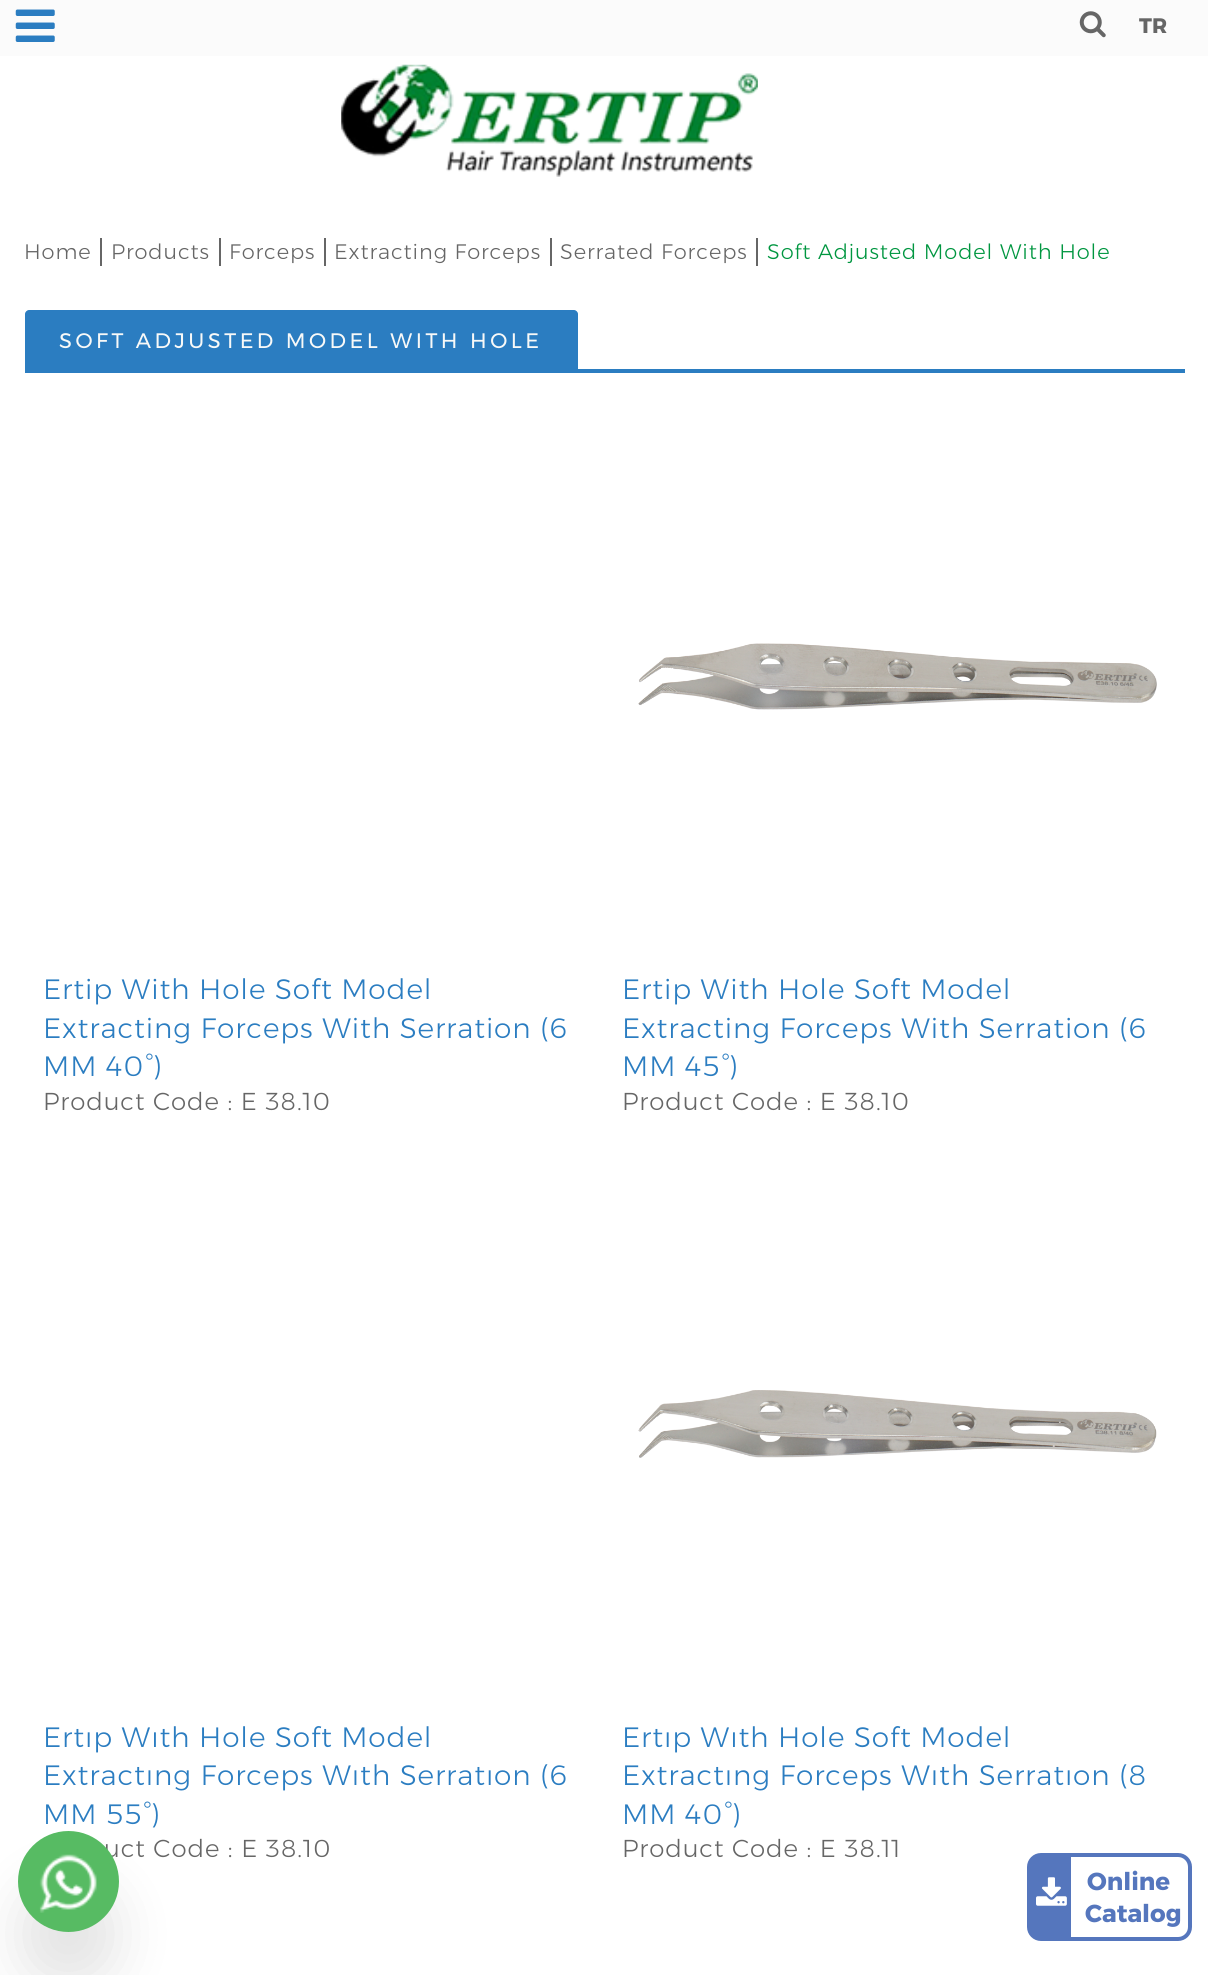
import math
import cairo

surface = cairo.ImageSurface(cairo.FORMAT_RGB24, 1208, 1975)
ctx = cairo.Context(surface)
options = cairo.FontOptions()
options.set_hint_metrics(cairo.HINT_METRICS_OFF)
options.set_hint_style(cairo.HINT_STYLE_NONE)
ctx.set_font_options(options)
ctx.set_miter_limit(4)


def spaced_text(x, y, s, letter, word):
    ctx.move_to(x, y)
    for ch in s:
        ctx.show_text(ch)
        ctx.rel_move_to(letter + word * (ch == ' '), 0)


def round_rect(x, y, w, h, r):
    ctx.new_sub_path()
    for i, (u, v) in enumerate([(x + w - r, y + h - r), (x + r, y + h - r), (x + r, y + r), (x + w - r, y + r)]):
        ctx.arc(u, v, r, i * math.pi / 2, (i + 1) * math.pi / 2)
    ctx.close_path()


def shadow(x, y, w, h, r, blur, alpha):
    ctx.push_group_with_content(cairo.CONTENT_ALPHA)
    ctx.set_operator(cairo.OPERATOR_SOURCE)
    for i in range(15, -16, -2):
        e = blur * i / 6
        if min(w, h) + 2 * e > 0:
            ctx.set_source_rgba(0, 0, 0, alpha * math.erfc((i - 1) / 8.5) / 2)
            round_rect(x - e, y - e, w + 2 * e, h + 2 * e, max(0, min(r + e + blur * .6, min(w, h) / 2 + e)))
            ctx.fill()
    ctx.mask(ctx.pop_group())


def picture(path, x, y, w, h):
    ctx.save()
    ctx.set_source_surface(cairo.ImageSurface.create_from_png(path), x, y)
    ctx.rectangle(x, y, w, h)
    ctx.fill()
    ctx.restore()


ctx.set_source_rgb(1, 1, 1)
ctx.paint()
ctx.set_source_rgb(0.984, 0.984, 0.984)
ctx.rectangle(0, 0, 1208, 56)
ctx.fill()
picture("img1.png", 15, 9, 40, 33)
picture("img2.png", 1079, 11, 27, 27)
ctx.select_font_face("Montserrat", cairo.FONT_SLANT_NORMAL, cairo.FONT_WEIGHT_BOLD)
ctx.set_font_size(21)
ctx.set_source_rgb(0.4, 0.4, 0.4)
ctx.move_to(1139, 33)
ctx.show_text("TR")
ctx.set_source_rgb(0.169, 0.49, 0.757)
ctx.rectangle(25, 369, 1160, 4)
ctx.fill()
ctx.set_source_rgb(0.4, 0.4, 0.4)
ctx.rectangle(100, 238, 2, 28)
ctx.fill()
ctx.select_font_face("Montserrat Light")
spaced_text(24, 259, "Home", 0.9, 0)
ctx.rectangle(219, 238, 2, 28)
ctx.fill()
spaced_text(111, 259, "Products", 0.9, 0)
ctx.rectangle(324, 238, 2, 28)
ctx.fill()
spaced_text(229, 259, "Forceps", 0.9, 0)
ctx.rectangle(550, 238, 2, 28)
ctx.fill()
spaced_text(334, 259, "Extracting Forceps", 0.9, 0)
ctx.rectangle(756, 238, 2, 28)
ctx.fill()
spaced_text(560, 259, "Serrated Forceps", 0.9, 0)
ctx.set_source_rgb(0, 0.588, 0.251)
spaced_text(767, 259, "Soft Adjusted Model With Hole", 0.9, 0)
ctx.set_source_rgb(0.169, 0.49, 0.757)
ctx.new_path()
ctx.move_to(29, 310)
ctx.line_to(574, 310)
ctx.curve_to(576, 310, 578, 312, 578, 314)
ctx.line_to(578, 369)
ctx.line_to(25, 369)
ctx.line_to(25, 314)
ctx.curve_to(25, 312, 27, 310, 29, 310)
ctx.close_path()
ctx.fill()
ctx.select_font_face("Montserrat")
ctx.set_source_rgb(0.969, 0.973, 0.969)
spaced_text(59, 348, "SOFT ADJUSTED MODEL WITH HOLE", 3.5, 0)
ctx.select_font_face("Montserrat Light")
ctx.set_font_size(28)
ctx.set_source_rgb(0.169, 0.49, 0.757)
spaced_text(43, 999, "Ertip With Hole Soft Model", 0.9, 0)
spaced_text(43, 1038, "Extracting Forceps With Serration (6", 0.9, 0)
spaced_text(43, 1076, "MM 40°)", 0.9, 0)
ctx.set_font_size(24.5)
ctx.set_source_rgb(0.4, 0.4, 0.4)
spaced_text(43, 1110, "Product Code : E 38.10", 0.9, 0)
picture("img3.png", 638, 643, 519, 67)
ctx.set_font_size(28)
ctx.set_source_rgb(0.169, 0.49, 0.757)
spaced_text(622, 999, "Ertip With Hole Soft Model", 0.9, 0)
spaced_text(622, 1038, "Extracting Forceps With Serration (6", 0.9, 0)
spaced_text(622, 1076, "MM 45°)", 0.9, 0)
ctx.set_font_size(24.5)
ctx.set_source_rgb(0.4, 0.4, 0.4)
spaced_text(622, 1110, "Product Code : E 38.10", 0.9, 0)
ctx.set_font_size(28)
ctx.set_source_rgb(0.169, 0.49, 0.757)
spaced_text(43, 1747, "Ertıp Wıth Hole Soft Model", 0.9, 0)
spaced_text(43, 1785, "Extractıng Forceps Wıth Serratıon (6", 0.9, 0)
spaced_text(43, 1824, "MM 55°)", 0.9, 0)
ctx.set_font_size(24.5)
ctx.set_source_rgb(0.4, 0.4, 0.4)
spaced_text(104, 1857, "uct Code : E 38.10", 0.9, 0)
picture("img4.png", 638, 1390, 519, 68)
ctx.set_font_size(28)
ctx.set_source_rgb(0.169, 0.49, 0.757)
spaced_text(622, 1747, "Ertıp Wıth Hole Soft Model", 0.9, 0)
spaced_text(622, 1785, "Extractıng Forceps Wıth Serratıon (8", 0.9, 0)
spaced_text(622, 1824, "MM 40°)", 0.9, 0)
ctx.set_font_size(24.5)
ctx.set_source_rgb(0.4, 0.4, 0.4)
spaced_text(622, 1857, "Product Code : E 38.11", 0.9, 0)
ctx.set_source_rgb(0, 0, 0)
shadow(18, 1883, 101, 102, 50.5, 26, 0.1)
ctx.set_source_rgb(0.341, 0.733, 0.388)
ctx.arc(68.5, 1881.5, 50.5, 0, 2 * math.pi)
ctx.fill()
picture("img5.png", 39, 1854, 58, 59)
picture("img6.png", 341, 64, 417, 113)
round_rect(1029, 1855, 161, 84, 12)
ctx.set_source_rgb(0.333, 0.463, 0.741)
ctx.set_line_width(4)
ctx.stroke()
ctx.new_path()
ctx.move_to(1036, 1857)
ctx.line_to(1071, 1857)
ctx.line_to(1071, 1937)
ctx.line_to(1036, 1937)
ctx.curve_to(1033, 1937, 1031, 1935, 1031, 1932)
ctx.line_to(1031, 1862)
ctx.curve_to(1031, 1859, 1033, 1857, 1036, 1857)
ctx.close_path()
ctx.fill()
picture("img7.png", 1036, 1877, 31, 29)
ctx.select_font_face("Montserrat", cairo.FONT_SLANT_NORMAL, cairo.FONT_WEIGHT_BOLD)
ctx.move_to(1087, 1890)
ctx.show_text("Online")
ctx.move_to(1085, 1922)
ctx.show_text("Catalog")
surface.write_to_png("page.png")
